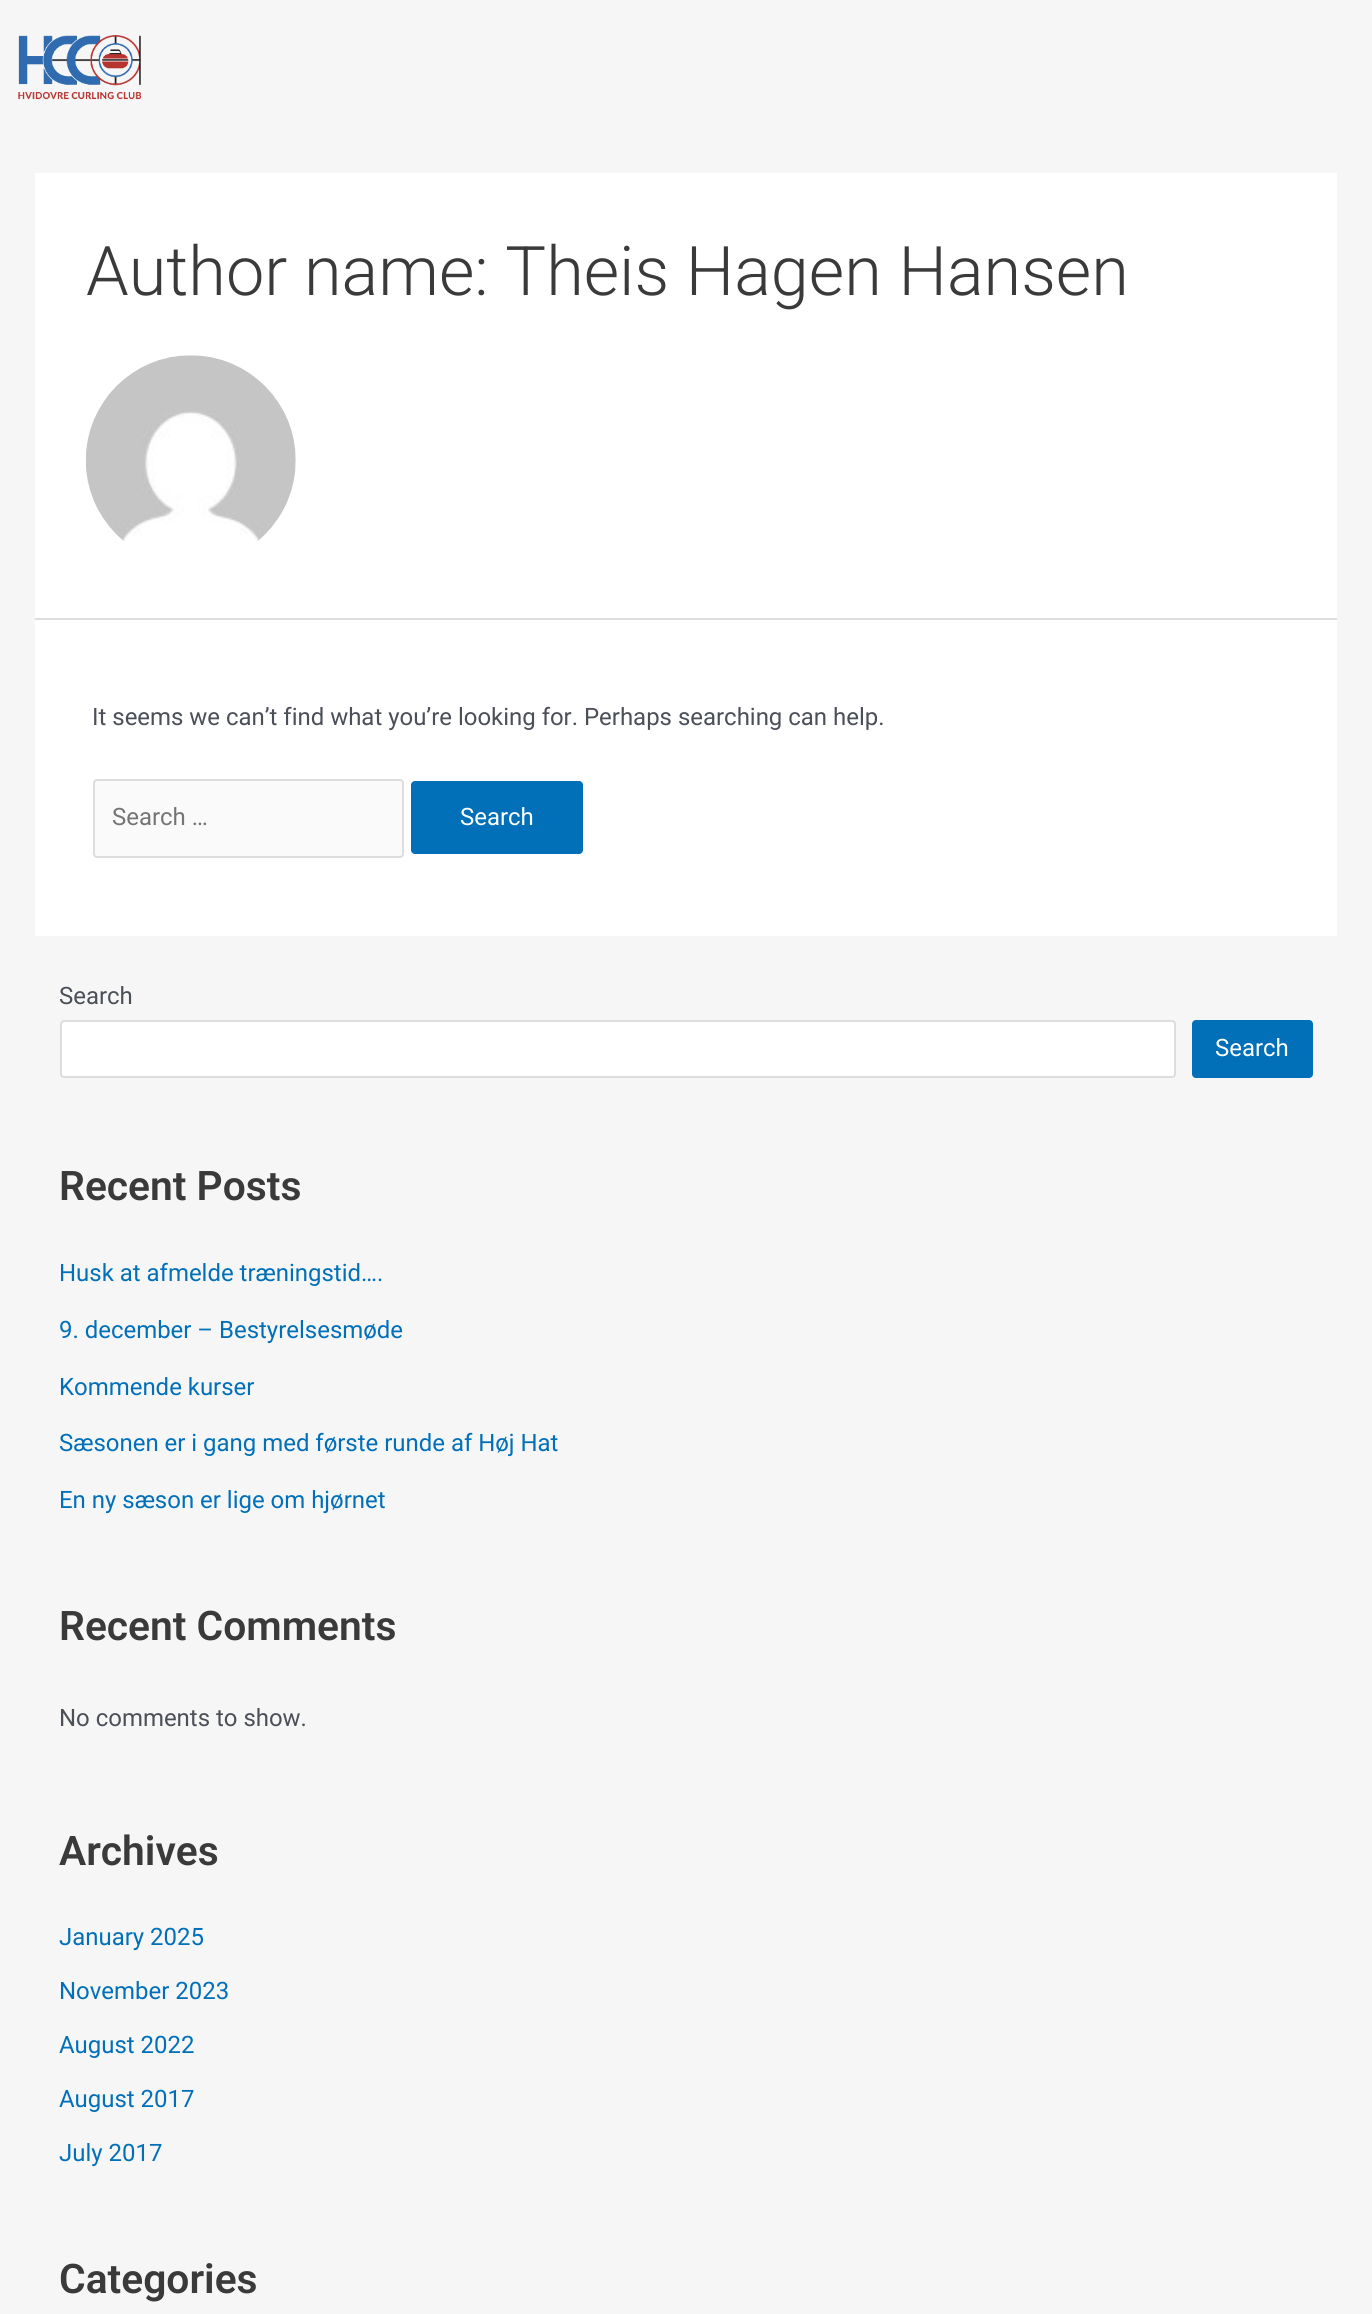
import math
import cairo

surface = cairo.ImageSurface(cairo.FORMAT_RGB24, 1372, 2314)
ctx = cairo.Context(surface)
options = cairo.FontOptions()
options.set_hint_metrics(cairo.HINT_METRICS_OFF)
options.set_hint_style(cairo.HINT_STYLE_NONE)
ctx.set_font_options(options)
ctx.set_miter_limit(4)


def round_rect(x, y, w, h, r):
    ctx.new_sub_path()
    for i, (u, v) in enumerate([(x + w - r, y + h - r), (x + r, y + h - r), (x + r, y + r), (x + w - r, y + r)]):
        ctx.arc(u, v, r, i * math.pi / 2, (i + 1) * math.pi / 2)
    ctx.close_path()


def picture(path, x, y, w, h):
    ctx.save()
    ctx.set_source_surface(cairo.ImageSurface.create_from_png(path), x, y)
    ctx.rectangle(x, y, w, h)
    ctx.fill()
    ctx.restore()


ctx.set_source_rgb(0.961, 0.961, 0.961)
ctx.paint()
picture("img1.png", 18, 35, 124, 65)
ctx.set_source_rgb(1, 1, 1)
ctx.rectangle(35, 173, 1302, 445)
ctx.fill()
ctx.set_source_rgb(0.867, 0.867, 0.867)
ctx.rectangle(35, 618, 1302, 2)
ctx.fill()
ctx.select_font_face("Roboto Light")
ctx.set_font_size(68.4)
ctx.set_source_rgb(0.227, 0.227, 0.227)
ctx.move_to(86, 295)
ctx.show_text("Author name: Theis Hagen Hansen")
picture("img2.png", 85, 355, 211, 187)
ctx.set_source_rgb(1, 1, 1)
ctx.rectangle(35, 620, 1302, 316)
ctx.fill()
ctx.select_font_face("Roboto")
ctx.set_font_size(23.95)
ctx.set_source_rgb(0.294, 0.31, 0.345)
ctx.move_to(92, 725)
ctx.show_text("It seems we can’t find what you’re looking for. Perhaps searching can help.")
ctx.set_source_rgb(0.98, 0.98, 0.98)
round_rect(94, 780, 309, 77, 3)
ctx.fill_preserve()
ctx.set_source_rgb(0.867, 0.867, 0.867)
ctx.stroke()
ctx.set_source_rgb(0.459, 0.459, 0.459)
ctx.move_to(112, 825)
ctx.show_text("Search …")
ctx.set_source_rgb(0.004, 0.439, 0.725)
round_rect(411, 781, 172, 73, 4)
ctx.fill()
ctx.set_source_rgb(1, 1, 1)
ctx.move_to(460, 825)
ctx.show_text("Search")
ctx.set_source_rgb(0.294, 0.31, 0.345)
ctx.move_to(59, 1004)
ctx.show_text("Search")
ctx.set_source_rgb(1, 1, 1)
round_rect(61, 1021, 1114, 56, 3)
ctx.fill_preserve()
ctx.set_source_rgb(0.867, 0.867, 0.867)
ctx.stroke()
ctx.set_source_rgb(0.004, 0.439, 0.725)
round_rect(1192, 1020, 121, 58, 4)
ctx.fill()
ctx.set_source_rgb(1, 1, 1)
ctx.move_to(1215, 1056)
ctx.show_text("Search")
ctx.select_font_face("Roboto SemiBold")
ctx.set_font_size(40.75)
ctx.set_source_rgb(0.227, 0.227, 0.227)
ctx.move_to(59, 1200)
ctx.show_text("Recent Posts")
ctx.select_font_face("Roboto")
ctx.set_font_size(23.95)
ctx.set_source_rgb(0.004, 0.439, 0.725)
ctx.move_to(59, 1281)
ctx.show_text("Husk at afmelde træningstid….")
ctx.move_to(59, 1338)
ctx.show_text("9. december – Bestyrelsesmøde")
ctx.move_to(59, 1395)
ctx.show_text("Kommende kurser")
ctx.move_to(59, 1451)
ctx.show_text("Sæsonen er i gang med første runde af Høj Hat")
ctx.move_to(59, 1508)
ctx.show_text("En ny sæson er lige om hjørnet")
ctx.select_font_face("Roboto SemiBold")
ctx.set_font_size(40.75)
ctx.set_source_rgb(0.227, 0.227, 0.227)
ctx.move_to(59, 1640)
ctx.show_text("Recent Comments")
ctx.select_font_face("Roboto")
ctx.set_font_size(23.95)
ctx.set_source_rgb(0.294, 0.31, 0.345)
ctx.move_to(59, 1726)
ctx.show_text("No comments to show.")
ctx.select_font_face("Roboto SemiBold")
ctx.set_font_size(40.75)
ctx.set_source_rgb(0.227, 0.227, 0.227)
ctx.move_to(59, 1865)
ctx.show_text("Archives")
ctx.select_font_face("Roboto")
ctx.set_font_size(23.95)
ctx.set_source_rgb(0.004, 0.439, 0.725)
ctx.move_to(59, 1945)
ctx.show_text("January 2025")
ctx.move_to(59, 1999)
ctx.show_text("November 2023")
ctx.move_to(59, 2053)
ctx.show_text("August 2022")
ctx.move_to(59, 2107)
ctx.show_text("August 2017")
ctx.move_to(59, 2161)
ctx.show_text("July 2017")
ctx.select_font_face("Roboto SemiBold")
ctx.set_font_size(40.75)
ctx.set_source_rgb(0.227, 0.227, 0.227)
ctx.move_to(59, 2293)
ctx.show_text("Categories")
surface.write_to_png("page.png")
